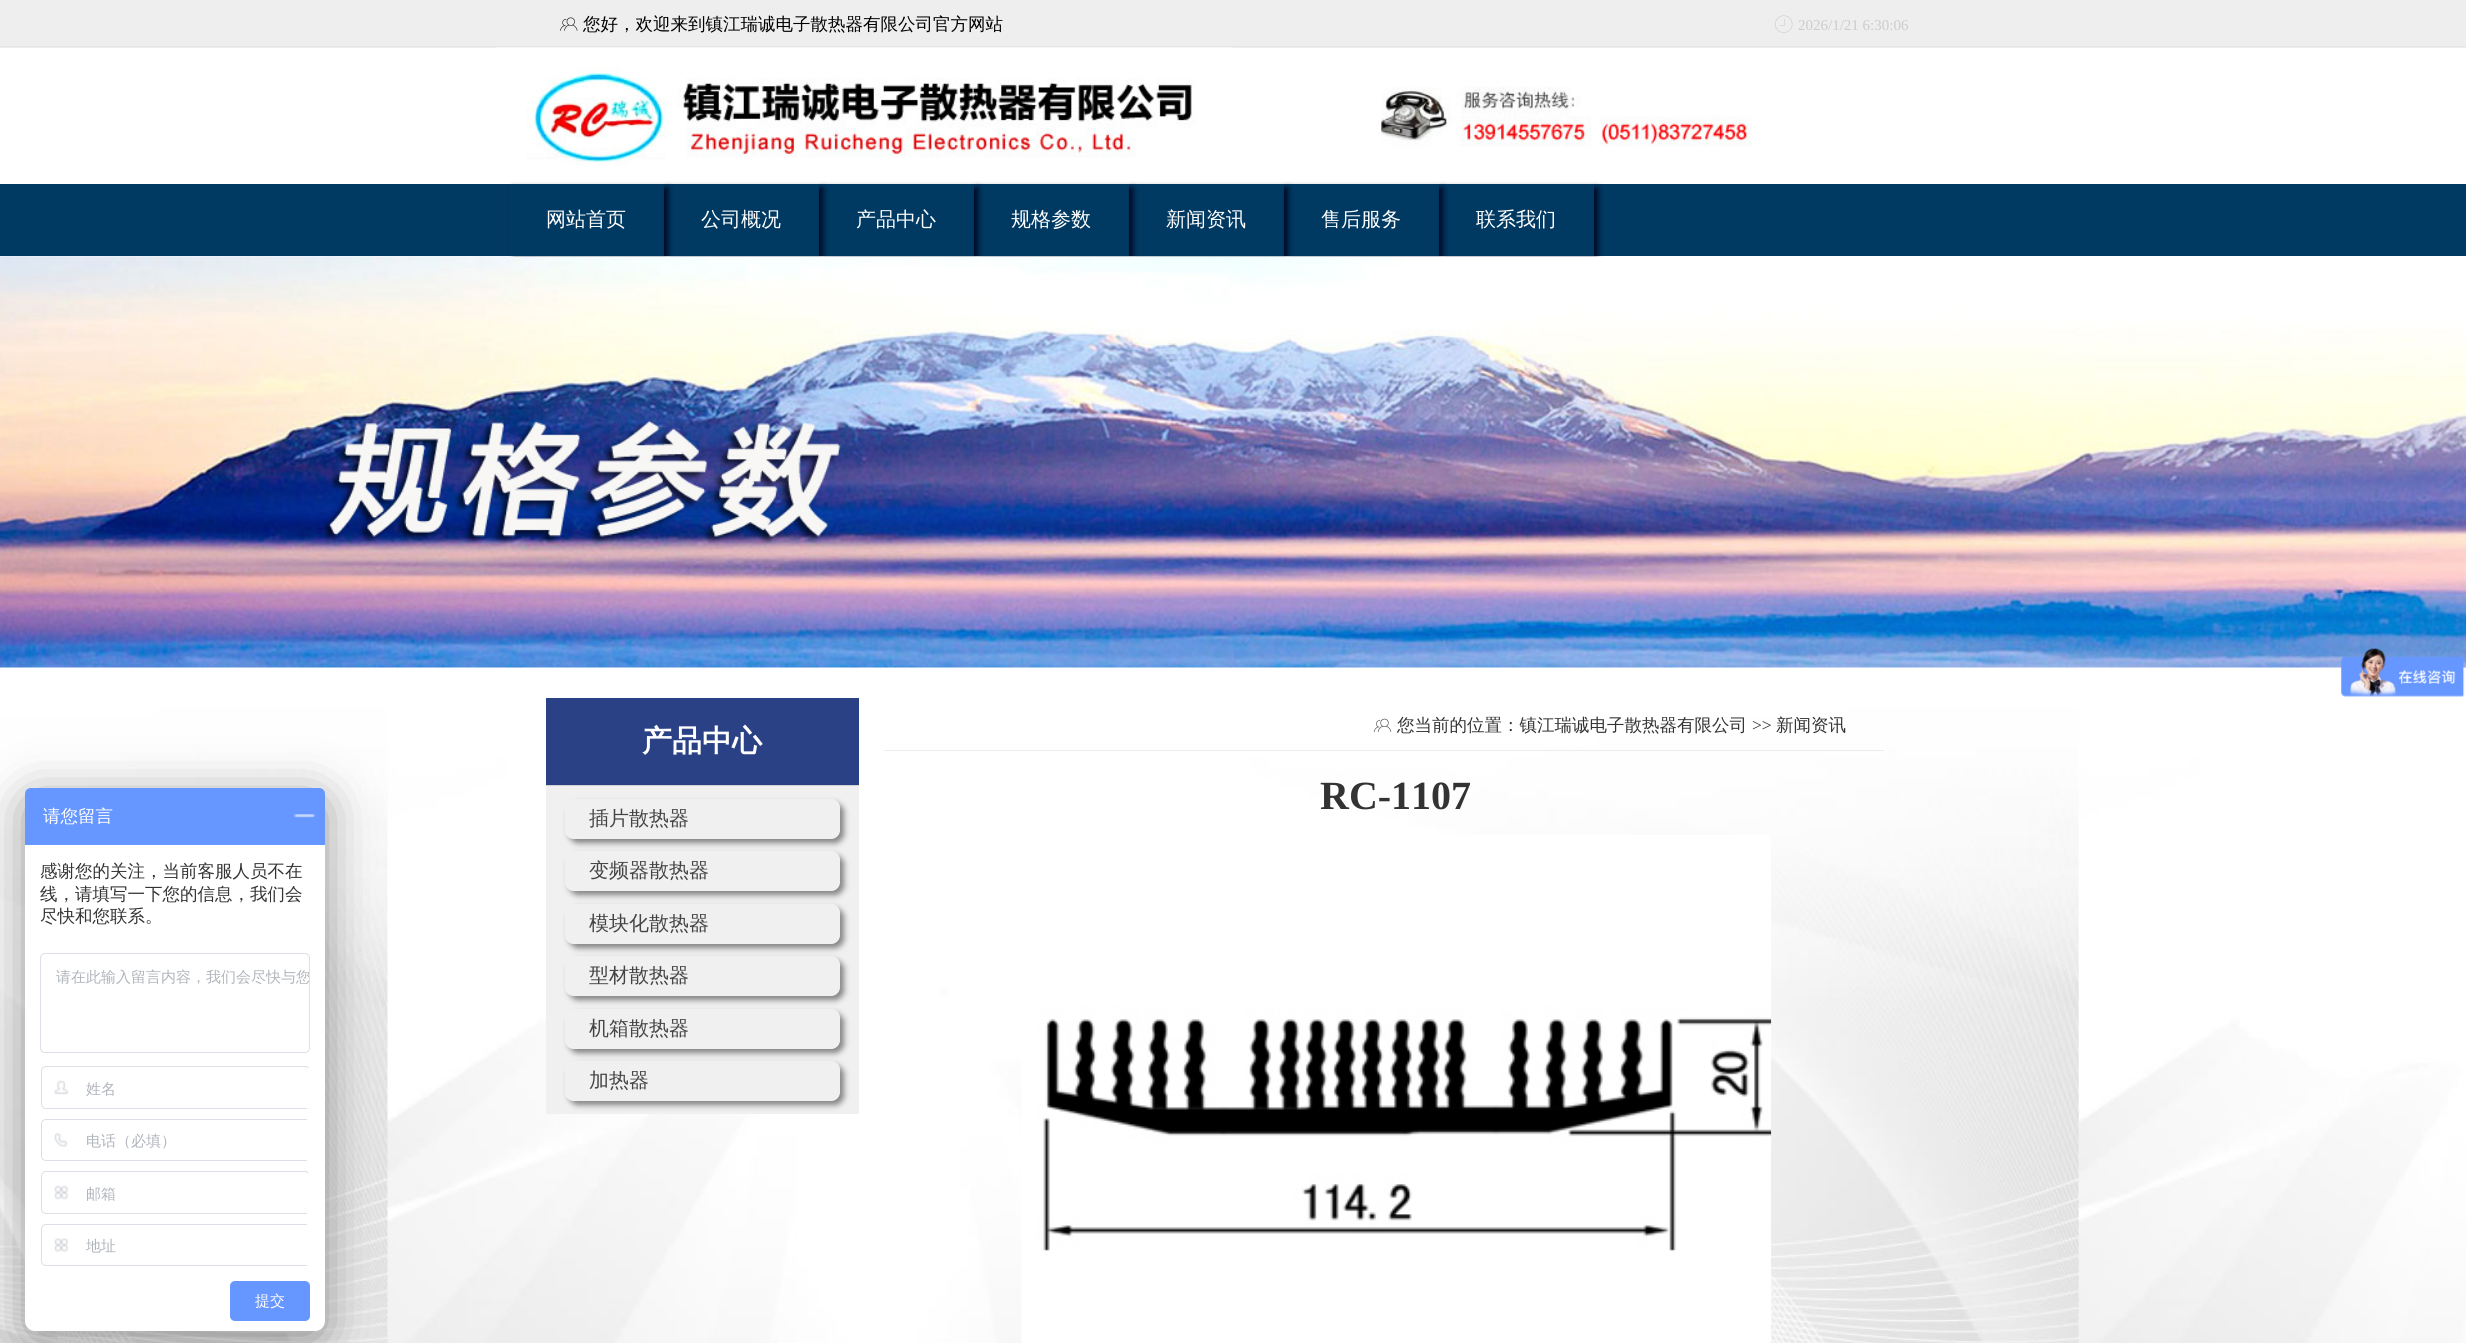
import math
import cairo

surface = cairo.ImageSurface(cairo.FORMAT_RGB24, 2466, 1343)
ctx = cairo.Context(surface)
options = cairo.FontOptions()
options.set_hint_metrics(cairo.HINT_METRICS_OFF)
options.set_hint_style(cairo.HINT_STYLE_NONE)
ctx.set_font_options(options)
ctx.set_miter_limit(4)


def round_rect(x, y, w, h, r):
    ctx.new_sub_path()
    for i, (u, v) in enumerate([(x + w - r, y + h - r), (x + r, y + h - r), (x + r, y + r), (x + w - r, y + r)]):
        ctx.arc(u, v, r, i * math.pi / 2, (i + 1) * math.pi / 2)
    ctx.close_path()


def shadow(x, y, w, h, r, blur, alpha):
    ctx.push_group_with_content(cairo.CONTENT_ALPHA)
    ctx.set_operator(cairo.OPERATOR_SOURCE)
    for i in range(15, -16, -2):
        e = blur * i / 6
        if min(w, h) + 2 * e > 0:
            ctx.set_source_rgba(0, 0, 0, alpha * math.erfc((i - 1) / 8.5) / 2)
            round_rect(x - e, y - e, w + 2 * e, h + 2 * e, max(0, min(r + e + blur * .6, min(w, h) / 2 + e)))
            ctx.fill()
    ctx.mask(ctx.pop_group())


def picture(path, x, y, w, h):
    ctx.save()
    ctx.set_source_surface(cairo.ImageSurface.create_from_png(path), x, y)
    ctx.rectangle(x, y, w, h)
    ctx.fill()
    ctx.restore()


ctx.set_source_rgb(1, 1, 1)
ctx.paint()
ctx.set_source_rgb(0.933, 0.933, 0.933)
ctx.rectangle(0, 0, 2466, 48)
ctx.fill()
ctx.set_source_rgb(0.898, 0.898, 0.898)
ctx.rectangle(0, 46, 2466, 1)
ctx.fill()
picture("img1.png", 560, 17, 18, 14)
ctx.select_font_face("WenQuanYi Zen Hei Medium")
ctx.set_font_size(17.5)
ctx.set_source_rgb(0, 0, 0)
ctx.move_to(583, 30)
ctx.show_text("您好，欢迎来到镇江瑞诚电子散热器有限公司官方网站")
picture("img2.png", 1775, 15, 18, 18)
ctx.select_font_face("Liberation Serif")
ctx.set_font_size(15)
ctx.set_source_rgb(0.8, 0.8, 0.8)
ctx.move_to(1798, 30)
ctx.show_text("2026/1/21 6:30:06")
picture("img3.png", 496, 47, 737, 119)
picture("img4.png", 1381, 86, 371, 61)
ctx.set_source_rgb(0, 0.227, 0.384)
ctx.rectangle(0, 184, 2466, 72)
ctx.fill()
ctx.save()
ctx.set_fill_rule(cairo.FILL_RULE_EVEN_ODD)
ctx.new_path()
ctx.move_to(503, 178)
ctx.line_to(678, 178)
ctx.line_to(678, 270)
ctx.line_to(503, 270)
ctx.close_path()
ctx.move_to(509, 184)
ctx.line_to(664, 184)
ctx.line_to(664, 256)
ctx.line_to(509, 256)
ctx.close_path()
ctx.clip()
ctx.set_source_rgb(0, 0.031, 0.145)
shadow(513, 188, 155, 72, 0, 3, 1)
ctx.restore()
ctx.select_font_face("WenQuanYi Zen Hei Medium")
ctx.set_font_size(20)
ctx.set_source_rgb(1, 1, 1)
ctx.move_to(546, 226)
ctx.show_text("网站首页")
ctx.save()
ctx.set_fill_rule(cairo.FILL_RULE_EVEN_ODD)
ctx.new_path()
ctx.move_to(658, 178)
ctx.line_to(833, 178)
ctx.line_to(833, 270)
ctx.line_to(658, 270)
ctx.close_path()
ctx.move_to(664, 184)
ctx.line_to(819, 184)
ctx.line_to(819, 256)
ctx.line_to(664, 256)
ctx.close_path()
ctx.clip()
ctx.set_source_rgb(0, 0.031, 0.145)
shadow(668, 188, 155, 72, 0, 3, 1)
ctx.restore()
ctx.move_to(701, 226)
ctx.show_text("公司概况")
ctx.save()
ctx.set_fill_rule(cairo.FILL_RULE_EVEN_ODD)
ctx.new_path()
ctx.move_to(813, 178)
ctx.line_to(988, 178)
ctx.line_to(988, 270)
ctx.line_to(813, 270)
ctx.close_path()
ctx.move_to(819, 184)
ctx.line_to(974, 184)
ctx.line_to(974, 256)
ctx.line_to(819, 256)
ctx.close_path()
ctx.clip()
ctx.set_source_rgb(0, 0.031, 0.145)
shadow(823, 188, 155, 72, 0, 3, 1)
ctx.restore()
ctx.move_to(856, 226)
ctx.show_text("产品中心")
ctx.save()
ctx.set_fill_rule(cairo.FILL_RULE_EVEN_ODD)
ctx.new_path()
ctx.move_to(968, 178)
ctx.line_to(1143, 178)
ctx.line_to(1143, 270)
ctx.line_to(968, 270)
ctx.close_path()
ctx.move_to(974, 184)
ctx.line_to(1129, 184)
ctx.line_to(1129, 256)
ctx.line_to(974, 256)
ctx.close_path()
ctx.clip()
ctx.set_source_rgb(0, 0.031, 0.145)
shadow(978, 188, 155, 72, 0, 3, 1)
ctx.restore()
ctx.move_to(1011, 226)
ctx.show_text("规格参数")
ctx.save()
ctx.set_fill_rule(cairo.FILL_RULE_EVEN_ODD)
ctx.new_path()
ctx.move_to(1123, 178)
ctx.line_to(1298, 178)
ctx.line_to(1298, 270)
ctx.line_to(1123, 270)
ctx.close_path()
ctx.move_to(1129, 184)
ctx.line_to(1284, 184)
ctx.line_to(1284, 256)
ctx.line_to(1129, 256)
ctx.close_path()
ctx.clip()
ctx.set_source_rgb(0, 0.031, 0.145)
shadow(1133, 188, 155, 72, 0, 3, 1)
ctx.restore()
ctx.move_to(1166, 226)
ctx.show_text("新闻资讯")
ctx.save()
ctx.set_fill_rule(cairo.FILL_RULE_EVEN_ODD)
ctx.new_path()
ctx.move_to(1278, 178)
ctx.line_to(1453, 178)
ctx.line_to(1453, 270)
ctx.line_to(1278, 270)
ctx.close_path()
ctx.move_to(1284, 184)
ctx.line_to(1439, 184)
ctx.line_to(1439, 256)
ctx.line_to(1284, 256)
ctx.close_path()
ctx.clip()
ctx.set_source_rgb(0, 0.031, 0.145)
shadow(1288, 188, 155, 72, 0, 3, 1)
ctx.restore()
ctx.move_to(1321, 226)
ctx.show_text("售后服务")
ctx.save()
ctx.set_fill_rule(cairo.FILL_RULE_EVEN_ODD)
ctx.new_path()
ctx.move_to(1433, 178)
ctx.line_to(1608, 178)
ctx.line_to(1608, 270)
ctx.line_to(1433, 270)
ctx.close_path()
ctx.move_to(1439, 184)
ctx.line_to(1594, 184)
ctx.line_to(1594, 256)
ctx.line_to(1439, 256)
ctx.close_path()
ctx.clip()
ctx.set_source_rgb(0, 0.031, 0.145)
shadow(1443, 188, 155, 72, 0, 3, 1)
ctx.restore()
ctx.move_to(1476, 226)
ctx.show_text("联系我们")
picture("img5.png", 0, 256, 2466, 412)
picture("img6.png", 2341, 648, 124, 49)
picture("img12.png", 0, 698, 2466, 645)
ctx.set_source_rgb(0, 0, 0)
shadow(25, 798, 300, 543, 10, 25, 0.4)
ctx.set_source_rgb(1, 1, 1)
round_rect(25, 788, 300, 543, 10)
ctx.fill()
ctx.set_source_rgb(0.4, 0.588, 1)
ctx.new_path()
ctx.move_to(31, 788)
ctx.line_to(319, 788)
ctx.curve_to(322.5, 788, 325, 790.5, 325, 794)
ctx.line_to(325, 845)
ctx.line_to(25, 845)
ctx.line_to(25, 794)
ctx.curve_to(25, 790.5, 27.5, 788, 31, 788)
ctx.close_path()
ctx.fill()
ctx.set_font_size(17.5)
ctx.set_source_rgb(1, 1, 1)
ctx.move_to(43, 822)
ctx.show_text("请您留言")
picture("img7.png", 293, 814, 23, 4)
ctx.set_source_rgb(0.2, 0.2, 0.2)
ctx.move_to(40, 877)
ctx.show_text("感谢您的关注，当前客服人员不在")
ctx.move_to(40, 900)
ctx.show_text("线，请填写一下您的信息，我们会")
ctx.move_to(40, 922)
ctx.show_text("尽快和您联系。")
round_rect(40.5, 953.5, 269, 99, 4.5)
ctx.set_source_rgb(0.863, 0.875, 0.902)
ctx.set_line_width(1)
ctx.stroke()
ctx.save()
round_rect(41, 954, 268, 97, 4)
ctx.clip()
ctx.set_font_size(15)
ctx.set_source_rgb(0.69, 0.706, 0.733)
ctx.move_to(56, 982)
ctx.show_text("请在此输入留言内容，我们会尽快与您")
ctx.restore()
round_rect(41.5, 1066.5, 268, 42, 4.5)
ctx.stroke()
picture("img8.png", 54, 1080, 15, 15)
ctx.set_source_rgb(1, 1, 1)
ctx.rectangle(306, 1068, 4, 40)
ctx.fill()
ctx.set_font_size(15)
ctx.set_source_rgb(0.69, 0.706, 0.733)
ctx.move_to(86, 1094)
ctx.show_text("姓名")
round_rect(41.5, 1119.5, 268, 41, 4.5)
ctx.set_source_rgb(0.863, 0.875, 0.902)
ctx.stroke()
picture("img9.png", 54, 1132, 14, 16)
ctx.set_source_rgb(1, 1, 1)
ctx.rectangle(306, 1120, 4, 40)
ctx.fill()
ctx.set_source_rgb(0.69, 0.706, 0.733)
ctx.move_to(86, 1146)
ctx.show_text("电话（必填）")
round_rect(41.5, 1171.5, 268, 42, 4.5)
ctx.set_source_rgb(0.863, 0.875, 0.902)
ctx.stroke()
picture("img10.png", 54, 1185, 15, 15)
ctx.set_source_rgb(1, 1, 1)
ctx.rectangle(306, 1173, 4, 40)
ctx.fill()
ctx.set_source_rgb(0.69, 0.706, 0.733)
ctx.move_to(86, 1199)
ctx.show_text("邮箱")
round_rect(41.5, 1224.5, 268, 41, 4.5)
ctx.set_source_rgb(0.863, 0.875, 0.902)
ctx.stroke()
picture("img11.png", 54, 1238, 15, 14)
ctx.set_source_rgb(1, 1, 1)
ctx.rectangle(306, 1225, 4, 40)
ctx.fill()
ctx.set_source_rgb(0.69, 0.706, 0.733)
ctx.move_to(86, 1251)
ctx.show_text("地址")
ctx.set_source_rgb(0.4, 0.588, 1)
round_rect(230, 1281, 80, 40, 5)
ctx.fill()
ctx.set_source_rgb(1, 1, 1)
ctx.move_to(255, 1306)
ctx.show_text("提交")
ctx.set_source_rgb(0.941, 0.941, 0.941)
ctx.rectangle(546, 786, 313, 328)
ctx.fill()
ctx.set_source_rgb(0.165, 0.255, 0.522)
ctx.rectangle(546, 698, 313, 87)
ctx.fill()
ctx.set_source_rgb(0.82, 0.82, 0.82)
ctx.rectangle(546, 785, 313, 1)
ctx.fill()
ctx.select_font_face("WenQuanYi Zen Hei", cairo.FONT_SLANT_NORMAL, cairo.FONT_WEIGHT_BOLD)
ctx.set_font_size(30)
ctx.set_source_rgb(1, 1, 1)
ctx.move_to(642, 751)
ctx.show_text("产品中心")
ctx.save()
ctx.set_fill_rule(cairo.FILL_RULE_EVEN_ODD)
ctx.new_path()
ctx.move_to(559, 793)
ctx.line_to(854, 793)
ctx.line_to(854, 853)
ctx.line_to(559, 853)
ctx.close_path()
ctx.move_to(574, 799)
ctx.line_to(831, 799)
ctx.curve_to(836, 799, 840, 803, 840, 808)
ctx.line_to(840, 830)
ctx.curve_to(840, 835, 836, 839, 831, 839)
ctx.line_to(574, 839)
ctx.curve_to(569, 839, 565, 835, 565, 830)
ctx.line_to(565, 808)
ctx.curve_to(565, 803, 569, 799, 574, 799)
ctx.close_path()
ctx.clip()
ctx.set_source_rgb(0.514, 0.514, 0.514)
shadow(569, 803, 275, 40, 9, 3, 1)
ctx.restore()
ctx.select_font_face("WenQuanYi Zen Hei Medium")
ctx.set_font_size(20)
ctx.set_source_rgb(0.267, 0.267, 0.267)
ctx.move_to(589, 825)
ctx.show_text("插片散热器")
ctx.save()
ctx.set_fill_rule(cairo.FILL_RULE_EVEN_ODD)
ctx.new_path()
ctx.move_to(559, 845)
ctx.line_to(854, 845)
ctx.line_to(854, 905)
ctx.line_to(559, 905)
ctx.close_path()
ctx.move_to(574, 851)
ctx.line_to(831, 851)
ctx.curve_to(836, 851, 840, 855, 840, 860)
ctx.line_to(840, 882)
ctx.curve_to(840, 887, 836, 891, 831, 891)
ctx.line_to(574, 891)
ctx.curve_to(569, 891, 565, 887, 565, 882)
ctx.line_to(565, 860)
ctx.curve_to(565, 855, 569, 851, 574, 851)
ctx.close_path()
ctx.clip()
ctx.set_source_rgb(0.514, 0.514, 0.514)
shadow(569, 855, 275, 40, 9, 3, 1)
ctx.restore()
ctx.move_to(589, 877)
ctx.show_text("变频器散热器")
ctx.save()
ctx.set_fill_rule(cairo.FILL_RULE_EVEN_ODD)
ctx.new_path()
ctx.move_to(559, 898)
ctx.line_to(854, 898)
ctx.line_to(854, 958)
ctx.line_to(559, 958)
ctx.close_path()
ctx.move_to(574, 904)
ctx.line_to(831, 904)
ctx.curve_to(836, 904, 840, 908, 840, 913)
ctx.line_to(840, 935)
ctx.curve_to(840, 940, 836, 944, 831, 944)
ctx.line_to(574, 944)
ctx.curve_to(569, 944, 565, 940, 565, 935)
ctx.line_to(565, 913)
ctx.curve_to(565, 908, 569, 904, 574, 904)
ctx.close_path()
ctx.clip()
ctx.set_source_rgb(0.514, 0.514, 0.514)
shadow(569, 908, 275, 40, 9, 3, 1)
ctx.restore()
ctx.move_to(589, 930)
ctx.show_text("模块化散热器")
ctx.save()
ctx.set_fill_rule(cairo.FILL_RULE_EVEN_ODD)
ctx.new_path()
ctx.move_to(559, 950)
ctx.line_to(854, 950)
ctx.line_to(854, 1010)
ctx.line_to(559, 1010)
ctx.close_path()
ctx.move_to(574, 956)
ctx.line_to(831, 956)
ctx.curve_to(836, 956, 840, 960, 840, 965)
ctx.line_to(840, 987)
ctx.curve_to(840, 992, 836, 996, 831, 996)
ctx.line_to(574, 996)
ctx.curve_to(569, 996, 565, 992, 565, 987)
ctx.line_to(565, 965)
ctx.curve_to(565, 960, 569, 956, 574, 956)
ctx.close_path()
ctx.clip()
ctx.set_source_rgb(0.514, 0.514, 0.514)
shadow(569, 960, 275, 40, 9, 3, 1)
ctx.restore()
ctx.move_to(589, 982)
ctx.show_text("型材散热器")
ctx.save()
ctx.set_fill_rule(cairo.FILL_RULE_EVEN_ODD)
ctx.new_path()
ctx.move_to(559, 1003)
ctx.line_to(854, 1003)
ctx.line_to(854, 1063)
ctx.line_to(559, 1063)
ctx.close_path()
ctx.move_to(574, 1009)
ctx.line_to(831, 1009)
ctx.curve_to(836, 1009, 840, 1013, 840, 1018)
ctx.line_to(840, 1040)
ctx.curve_to(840, 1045, 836, 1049, 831, 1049)
ctx.line_to(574, 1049)
ctx.curve_to(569, 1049, 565, 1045, 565, 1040)
ctx.line_to(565, 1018)
ctx.curve_to(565, 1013, 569, 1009, 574, 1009)
ctx.close_path()
ctx.clip()
ctx.set_source_rgb(0.514, 0.514, 0.514)
shadow(569, 1013, 275, 40, 9, 3, 1)
ctx.restore()
ctx.move_to(589, 1035)
ctx.show_text("机箱散热器")
ctx.save()
ctx.set_fill_rule(cairo.FILL_RULE_EVEN_ODD)
ctx.new_path()
ctx.move_to(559, 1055)
ctx.line_to(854, 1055)
ctx.line_to(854, 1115)
ctx.line_to(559, 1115)
ctx.close_path()
ctx.move_to(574, 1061)
ctx.line_to(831, 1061)
ctx.curve_to(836, 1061, 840, 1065, 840, 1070)
ctx.line_to(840, 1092)
ctx.curve_to(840, 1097, 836, 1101, 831, 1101)
ctx.line_to(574, 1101)
ctx.curve_to(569, 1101, 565, 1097, 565, 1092)
ctx.line_to(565, 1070)
ctx.curve_to(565, 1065, 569, 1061, 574, 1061)
ctx.close_path()
ctx.clip()
ctx.set_source_rgb(0.514, 0.514, 0.514)
shadow(569, 1065, 275, 40, 9, 3, 1)
ctx.restore()
ctx.move_to(589, 1087)
ctx.show_text("加热器")
ctx.set_source_rgb(0.929, 0.918, 0.918)
ctx.rectangle(884, 750, 1000, 1)
ctx.fill()
picture("img13.png", 1373, 718, 19, 14)
ctx.set_font_size(17.5)
ctx.set_source_rgb(0.2, 0.2, 0.2)
ctx.move_to(1397, 731)
ctx.show_text("您当前的位置：镇江瑞诚电子散热器有限公司")
ctx.select_font_face("Liberation Serif")
ctx.move_to(1752, 731)
ctx.show_text(">>")
ctx.select_font_face("WenQuanYi Zen Hei Medium")
ctx.move_to(1776, 731)
ctx.show_text("新闻资讯")
ctx.select_font_face("Liberation Serif", cairo.FONT_SLANT_NORMAL, cairo.FONT_WEIGHT_BOLD)
ctx.set_font_size(40)
ctx.move_to(1320, 809)
ctx.show_text("RC-1107")
picture("img14.png", 1021, 835, 751, 508)
surface.write_to_png("page.png")
